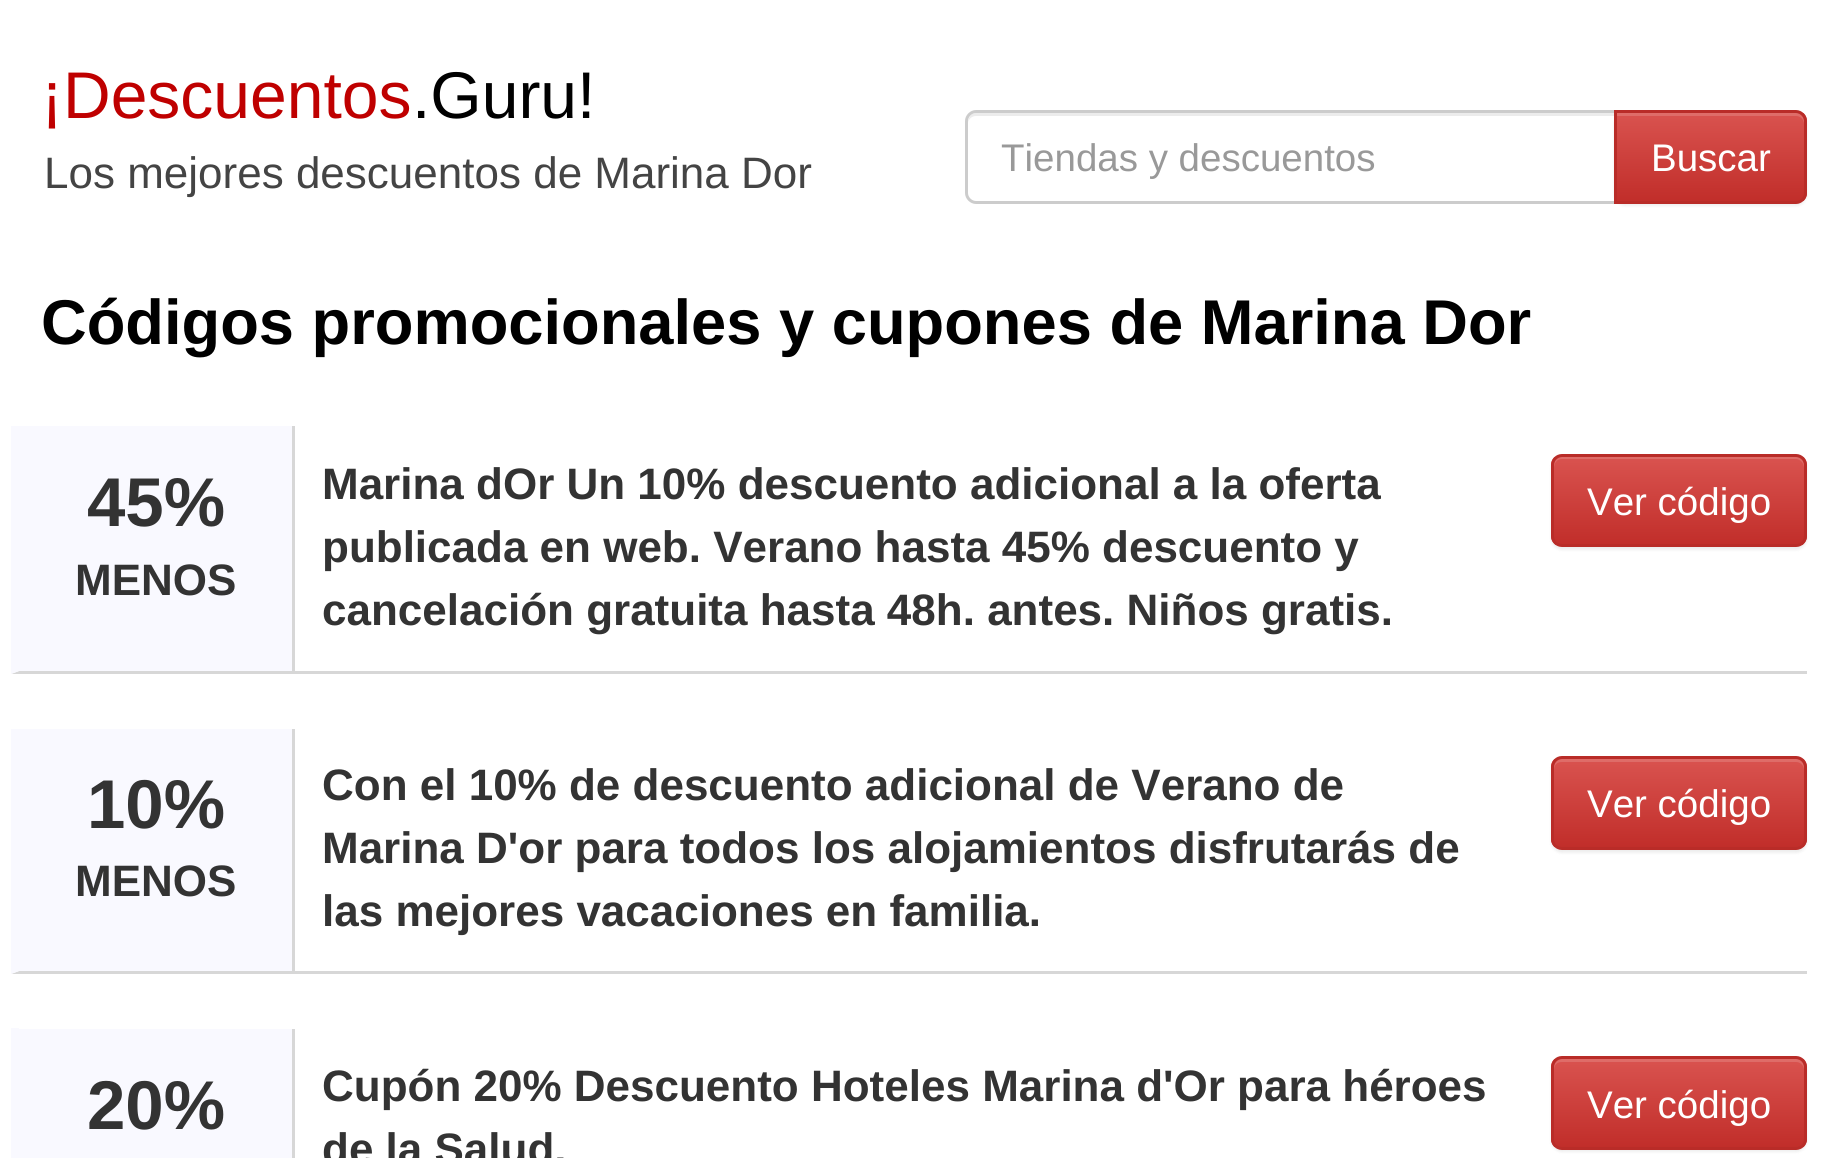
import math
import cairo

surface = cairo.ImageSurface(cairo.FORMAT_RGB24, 1847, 1158)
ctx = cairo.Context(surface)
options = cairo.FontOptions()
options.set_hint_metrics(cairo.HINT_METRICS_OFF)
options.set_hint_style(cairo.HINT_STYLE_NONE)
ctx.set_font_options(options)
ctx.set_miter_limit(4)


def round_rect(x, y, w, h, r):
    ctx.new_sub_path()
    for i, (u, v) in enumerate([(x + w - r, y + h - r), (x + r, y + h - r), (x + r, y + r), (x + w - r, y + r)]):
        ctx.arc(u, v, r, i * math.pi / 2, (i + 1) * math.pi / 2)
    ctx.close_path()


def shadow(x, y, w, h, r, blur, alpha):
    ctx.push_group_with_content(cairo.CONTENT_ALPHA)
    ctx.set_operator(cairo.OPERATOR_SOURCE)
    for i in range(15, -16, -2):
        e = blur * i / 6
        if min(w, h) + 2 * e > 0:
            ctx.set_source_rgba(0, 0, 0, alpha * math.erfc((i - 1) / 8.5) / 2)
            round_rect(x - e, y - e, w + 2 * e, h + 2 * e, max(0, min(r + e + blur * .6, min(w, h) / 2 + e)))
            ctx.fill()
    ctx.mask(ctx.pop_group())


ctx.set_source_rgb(1, 1, 1)
ctx.paint()
ctx.select_font_face("Liberation Sans")
ctx.set_font_size(66)
ctx.set_source_rgb(0.749, 0, 0)
ctx.move_to(41, 118)
ctx.show_text("¡Descuentos")
ctx.set_source_rgb(0, 0, 0)
ctx.move_to(412, 118)
ctx.show_text(".Guru!")
ctx.set_font_size(44)
ctx.set_source_rgb(0.267, 0.267, 0.267)
ctx.move_to(44, 188)
ctx.show_text("Los mejores descuentos de Marina Dor")
ctx.set_source_rgb(0.925, 0.925, 0.925)
ctx.new_path()
ctx.move_to(976, 116)
ctx.line_to(1614, 116)
ctx.line_to(1614, 113)
ctx.line_to(976, 113)
ctx.curve_to(970, 113, 968, 119, 968, 124)
ctx.curve_to(968, 119, 972, 116, 976, 116)
ctx.close_path()
ctx.fill()
ctx.new_path()
ctx.move_to(976, 111.5)
ctx.line_to(1615.5, 111.5)
ctx.line_to(1615.5, 202.5)
ctx.line_to(976, 202.5)
ctx.curve_to(971, 202.5, 966.5, 198, 966.5, 193)
ctx.line_to(966.5, 121)
ctx.curve_to(966.5, 116, 971, 111.5, 976, 111.5)
ctx.close_path()
ctx.set_source_rgb(0.8, 0.8, 0.8)
ctx.set_line_width(3)
ctx.stroke()
ctx.set_font_size(38.5)
ctx.set_source_rgb(0.6, 0.6, 0.6)
ctx.move_to(1001, 171)
ctx.show_text("Tiendas y descuentos")
ctx.set_source_rgb(0, 0, 0)
shadow(1614, 113, 193, 93, 11, 1.5, 0.07)
ctx.save()
ctx.new_path()
ctx.move_to(1614, 110)
ctx.line_to(1796, 110)
ctx.curve_to(1802, 110, 1807, 115, 1807, 121)
ctx.line_to(1807, 193)
ctx.curve_to(1807, 199, 1802, 204, 1796, 204)
ctx.line_to(1614, 204)
ctx.close_path()
ctx.clip()
gradient = cairo.LinearGradient(1711, 113, 1711, 201)
gradient.add_color_stop_rgba(0, 0.851, 0.325, 0.31, 1)
gradient.add_color_stop_rgba(1, 0.757, 0.18, 0.165, 1)
ctx.set_source(gradient)
ctx.rectangle(1617, 113, 190, 88)
ctx.fill()
ctx.restore()
ctx.set_source_rgba(1, 1, 1, 0.15)
ctx.new_path()
ctx.move_to(1617, 116)
ctx.line_to(1796, 116)
ctx.curve_to(1800, 116, 1804, 119, 1804, 124)
ctx.line_to(1804, 121)
ctx.curve_to(1804, 117, 1800, 113, 1796, 113)
ctx.line_to(1617, 113)
ctx.close_path()
ctx.fill()
ctx.new_path()
ctx.move_to(1615.5, 111.5)
ctx.line_to(1796, 111.5)
ctx.curve_to(1801, 111.5, 1805.5, 116, 1805.5, 121)
ctx.line_to(1805.5, 193)
ctx.curve_to(1805.5, 198, 1801, 202.5, 1796, 202.5)
ctx.line_to(1615.5, 202.5)
ctx.close_path()
ctx.set_source_rgb(0.725, 0.173, 0.157)
ctx.stroke()
ctx.set_source_rgb(1, 1, 1)
ctx.move_to(1651, 171)
ctx.show_text("Buscar")
ctx.select_font_face("Liberation Sans", cairo.FONT_SLANT_NORMAL, cairo.FONT_WEIGHT_BOLD)
ctx.set_font_size(63.25)
ctx.set_source_rgb(0, 0, 0)
ctx.move_to(41, 344)
ctx.show_text("Códigos promocionales y cupones de Marina Dor")
ctx.set_source_rgb(0.843, 0.843, 0.843)
ctx.new_path()
ctx.move_to(1807, 674)
ctx.line_to(11, 674)
ctx.line_to(19, 671)
ctx.line_to(1807, 671)
ctx.close_path()
ctx.fill()
ctx.set_source_rgb(0.973, 0.973, 1)
ctx.new_path()
ctx.move_to(11, 674)
ctx.line_to(11, 426)
ctx.line_to(19, 426)
ctx.line_to(19, 671)
ctx.close_path()
ctx.fill()
ctx.rectangle(19, 426, 273, 245)
ctx.fill()
ctx.set_source_rgb(0.843, 0.843, 0.843)
ctx.rectangle(292, 426, 3, 245)
ctx.fill()
ctx.set_font_size(69)
ctx.set_source_rgb(0.2, 0.2, 0.2)
ctx.move_to(87, 526)
ctx.show_text("45%")
ctx.set_font_size(44)
ctx.move_to(75, 595)
ctx.show_text("MENOS")
ctx.move_to(322, 499)
ctx.show_text("Marina dOr Un 10% descuento adicional a la oferta")
ctx.move_to(322, 562)
ctx.show_text("publicada en web. Verano hasta 45% descuento y")
ctx.move_to(322, 625)
ctx.show_text("cancelación gratuita hasta 48h. antes. Niños gratis.")
ctx.set_source_rgb(0, 0, 0)
shadow(1551, 457, 256, 93, 11, 1.5, 0.07)
ctx.save()
round_rect(1551, 454, 256, 93, 11)
ctx.clip()
gradient = cairo.LinearGradient(1679, 457, 1679, 545)
gradient.add_color_stop_rgba(0, 0.851, 0.325, 0.31, 1)
gradient.add_color_stop_rgba(1, 0.757, 0.18, 0.165, 1)
ctx.set_source(gradient)
ctx.rectangle(1551, 457, 256, 88)
ctx.fill()
ctx.restore()
ctx.set_source_rgba(1, 1, 1, 0.15)
ctx.new_path()
ctx.move_to(1562, 459)
ctx.line_to(1796, 459)
ctx.curve_to(1800, 459, 1804, 463, 1804, 468)
ctx.line_to(1804, 465)
ctx.curve_to(1804, 461, 1800, 457, 1796, 457)
ctx.line_to(1562, 457)
ctx.curve_to(1558, 457, 1554, 461, 1554, 465)
ctx.line_to(1554, 468)
ctx.curve_to(1554, 463, 1557, 459, 1562, 459)
ctx.close_path()
ctx.fill()
round_rect(1552.5, 455.5, 253, 90, 9.5)
ctx.set_source_rgb(0.725, 0.173, 0.157)
ctx.stroke()
ctx.select_font_face("Liberation Sans")
ctx.set_font_size(38.5)
ctx.set_source_rgb(1, 1, 1)
ctx.move_to(1587, 515)
ctx.show_text("Ver código")
ctx.set_source_rgb(0.843, 0.843, 0.843)
ctx.new_path()
ctx.move_to(1807, 974)
ctx.line_to(11, 974)
ctx.line_to(19, 971)
ctx.line_to(1807, 971)
ctx.close_path()
ctx.fill()
ctx.set_source_rgb(0.973, 0.973, 1)
ctx.new_path()
ctx.move_to(11, 974)
ctx.line_to(11, 729)
ctx.line_to(19, 729)
ctx.line_to(19, 971)
ctx.close_path()
ctx.fill()
ctx.rectangle(19, 729, 273, 242)
ctx.fill()
ctx.set_source_rgb(0.843, 0.843, 0.843)
ctx.rectangle(292, 729, 3, 242)
ctx.fill()
ctx.select_font_face("Liberation Sans", cairo.FONT_SLANT_NORMAL, cairo.FONT_WEIGHT_BOLD)
ctx.set_font_size(69)
ctx.set_source_rgb(0.2, 0.2, 0.2)
ctx.move_to(87, 828)
ctx.show_text("10%")
ctx.set_font_size(44)
ctx.move_to(75, 896)
ctx.show_text("MENOS")
ctx.move_to(322, 800)
ctx.show_text("Con el 10% de descuento adicional de Verano de")
ctx.move_to(322, 863)
ctx.show_text("Marina D'or para todos los alojamientos disfrutarás de")
ctx.move_to(322, 926)
ctx.show_text("las mejores vacaciones en familia.")
ctx.set_source_rgb(0, 0, 0)
shadow(1551, 759, 256, 94, 11, 1.5, 0.07)
ctx.save()
round_rect(1551, 756, 256, 94, 11)
ctx.clip()
gradient = cairo.LinearGradient(1679, 759, 1679, 847)
gradient.add_color_stop_rgba(0, 0.851, 0.325, 0.31, 1)
gradient.add_color_stop_rgba(1, 0.757, 0.18, 0.165, 1)
ctx.set_source(gradient)
ctx.rectangle(1551, 759, 256, 88)
ctx.fill()
ctx.restore()
ctx.set_source_rgba(1, 1, 1, 0.15)
ctx.new_path()
ctx.move_to(1562, 762)
ctx.line_to(1796, 762)
ctx.curve_to(1800, 762, 1804, 765, 1804, 770)
ctx.line_to(1804, 767)
ctx.curve_to(1804, 763, 1800, 759, 1796, 759)
ctx.line_to(1562, 759)
ctx.curve_to(1558, 759, 1554, 763, 1554, 767)
ctx.line_to(1554, 770)
ctx.curve_to(1554, 765, 1557, 762, 1562, 762)
ctx.close_path()
ctx.fill()
round_rect(1552.5, 757.5, 253, 91, 9.5)
ctx.set_source_rgb(0.725, 0.173, 0.157)
ctx.stroke()
ctx.select_font_face("Liberation Sans")
ctx.set_font_size(38.5)
ctx.set_source_rgb(1, 1, 1)
ctx.move_to(1587, 817)
ctx.show_text("Ver código")
ctx.set_source_rgb(0.973, 0.973, 1)
ctx.new_path()
ctx.move_to(11, 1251)
ctx.line_to(11, 1028)
ctx.line_to(19, 1028)
ctx.line_to(19, 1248)
ctx.close_path()
ctx.fill()
ctx.rectangle(19, 1029, 273, 129)
ctx.fill()
ctx.set_source_rgb(0.843, 0.843, 0.843)
ctx.rectangle(292, 1029, 3, 129)
ctx.fill()
ctx.select_font_face("Liberation Sans", cairo.FONT_SLANT_NORMAL, cairo.FONT_WEIGHT_BOLD)
ctx.set_font_size(69)
ctx.set_source_rgb(0.2, 0.2, 0.2)
ctx.move_to(87, 1129)
ctx.show_text("20%")
ctx.set_font_size(44)
ctx.move_to(322, 1101)
ctx.show_text("Cupón 20% Descuento Hoteles Marina d'Or para héroes")
ctx.move_to(322, 1164)
ctx.show_text("de la Salud.")
ctx.set_source_rgb(0, 0, 0)
shadow(1551, 1059, 256, 93, 11, 1.5, 0.07)
ctx.save()
round_rect(1551, 1056, 256, 94, 11)
ctx.clip()
gradient = cairo.LinearGradient(1679, 1059, 1679, 1147)
gradient.add_color_stop_rgba(0, 0.851, 0.325, 0.31, 1)
gradient.add_color_stop_rgba(1, 0.757, 0.18, 0.165, 1)
ctx.set_source(gradient)
ctx.rectangle(1551, 1059, 256, 88)
ctx.fill()
ctx.restore()
ctx.set_source_rgba(1, 1, 1, 0.15)
ctx.new_path()
ctx.move_to(1562, 1062)
ctx.line_to(1796, 1062)
ctx.curve_to(1800, 1062, 1804, 1065, 1804, 1070)
ctx.line_to(1804, 1067)
ctx.curve_to(1804, 1063, 1800, 1059, 1796, 1059)
ctx.line_to(1562, 1059)
ctx.curve_to(1558, 1059, 1554, 1063, 1554, 1067)
ctx.line_to(1554, 1070)
ctx.curve_to(1554, 1065, 1557, 1062, 1562, 1062)
ctx.close_path()
ctx.fill()
round_rect(1552.5, 1057.5, 253, 91, 9.5)
ctx.set_source_rgb(0.725, 0.173, 0.157)
ctx.stroke()
ctx.select_font_face("Liberation Sans")
ctx.set_font_size(38.5)
ctx.set_source_rgb(1, 1, 1)
ctx.move_to(1587, 1118)
ctx.show_text("Ver código")
surface.write_to_png("page.png")
